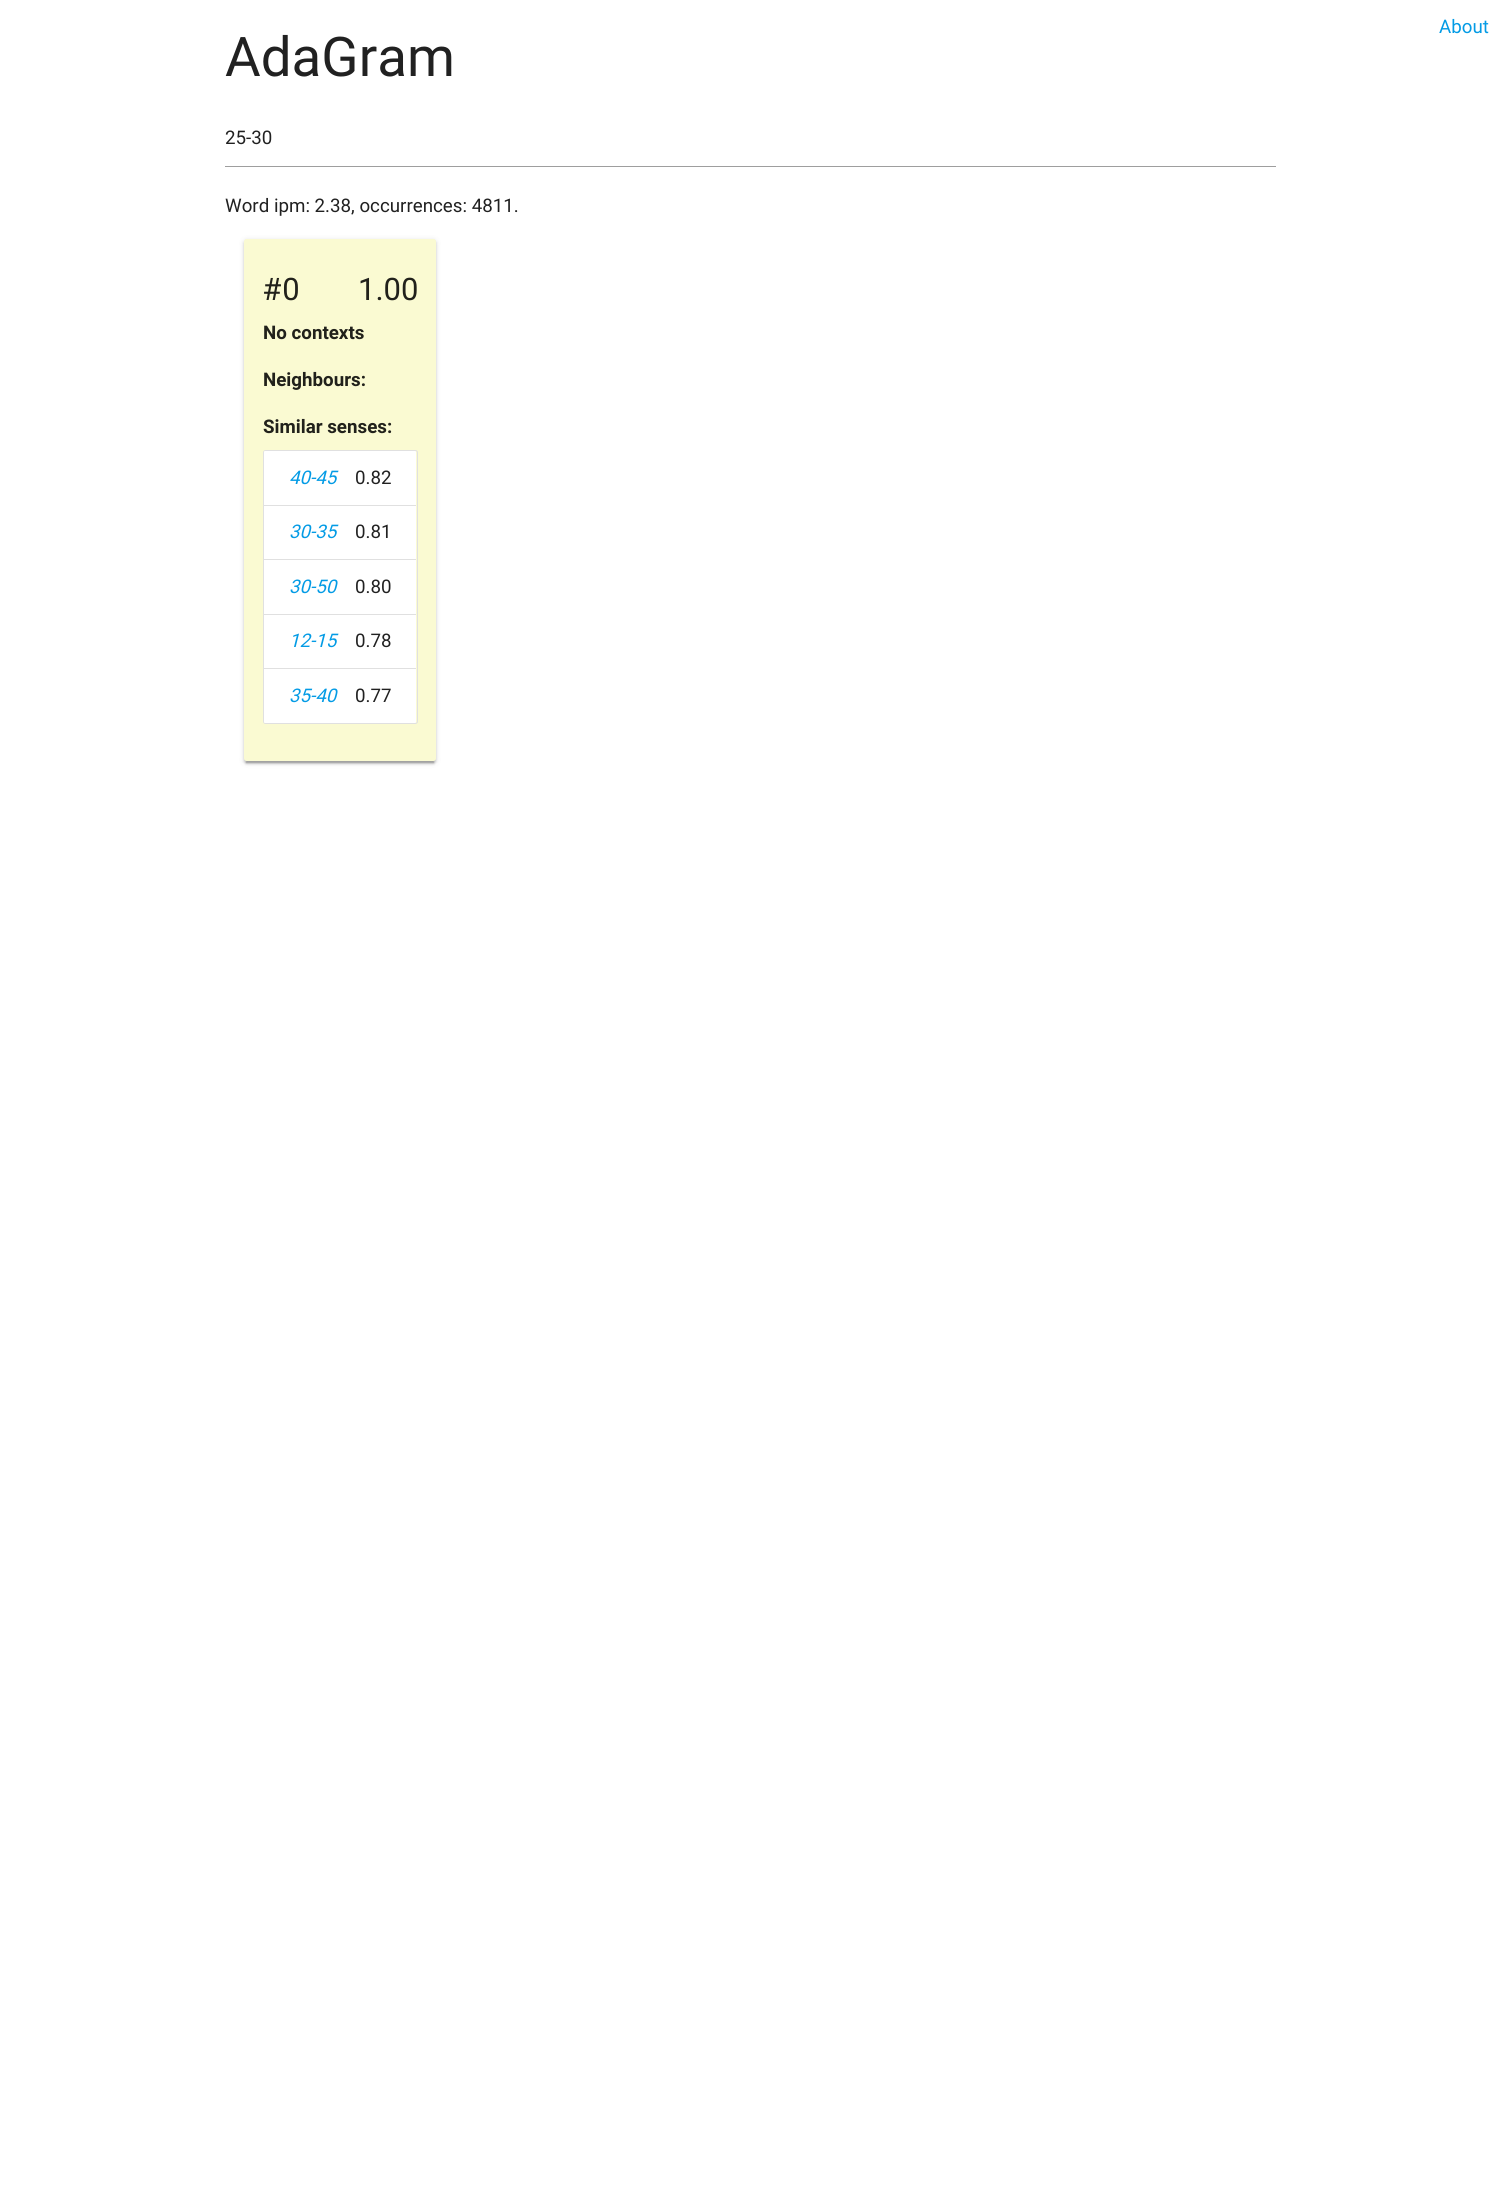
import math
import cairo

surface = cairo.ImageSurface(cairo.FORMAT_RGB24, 1501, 2198)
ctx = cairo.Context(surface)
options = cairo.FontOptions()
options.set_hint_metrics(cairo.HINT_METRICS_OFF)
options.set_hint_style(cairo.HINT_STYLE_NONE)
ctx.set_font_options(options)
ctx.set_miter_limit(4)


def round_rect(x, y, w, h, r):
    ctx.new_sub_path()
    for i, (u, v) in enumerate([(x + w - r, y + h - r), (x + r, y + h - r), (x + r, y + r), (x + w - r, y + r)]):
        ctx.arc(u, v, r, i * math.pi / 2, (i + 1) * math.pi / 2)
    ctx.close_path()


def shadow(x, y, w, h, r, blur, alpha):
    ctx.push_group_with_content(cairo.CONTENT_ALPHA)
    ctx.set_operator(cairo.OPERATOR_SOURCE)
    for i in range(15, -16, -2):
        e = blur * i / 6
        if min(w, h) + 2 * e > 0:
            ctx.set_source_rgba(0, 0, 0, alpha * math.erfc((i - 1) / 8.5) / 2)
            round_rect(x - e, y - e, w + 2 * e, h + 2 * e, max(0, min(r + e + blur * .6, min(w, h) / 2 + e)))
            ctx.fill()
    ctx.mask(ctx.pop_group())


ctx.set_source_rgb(1, 1, 1)
ctx.paint()
ctx.select_font_face("Roboto")
ctx.set_font_size(18.75)
ctx.set_source_rgb(0.012, 0.608, 0.898)
ctx.move_to(1439, 33)
ctx.show_text("About")
ctx.set_font_size(54.75)
ctx.set_source_rgb(0.129, 0.129, 0.129)
ctx.move_to(225, 76)
ctx.show_text("AdaGram")
ctx.set_source_rgb(0.62, 0.62, 0.62)
ctx.rectangle(225, 166, 1051, 1)
ctx.fill()
ctx.set_font_size(18.75)
ctx.set_source_rgb(0.129, 0.129, 0.129)
ctx.move_to(225, 144)
ctx.show_text("25-30")
ctx.move_to(225, 212)
ctx.show_text("Word ipm: 2.38, occurrences: 4811.")
ctx.set_source_rgb(0, 0, 0)
shadow(246, 245, 188, 518, 0, 0.5, 0.2)
shadow(244, 240, 192, 523, 2.5, 3, 0.12)
shadow(244, 241, 192, 523, 2.5, 1, 0.14)
ctx.set_source_rgb(0.98, 0.98, 0.824)
round_rect(244, 239, 192, 522, 2.5)
ctx.fill()
ctx.set_font_size(31)
ctx.set_source_rgb(0.129, 0.129, 0.106)
ctx.move_to(263, 300)
ctx.show_text("#0")
ctx.move_to(358, 300)
ctx.show_text("1.00")
ctx.select_font_face("Roboto", cairo.FONT_SLANT_NORMAL, cairo.FONT_WEIGHT_BOLD)
ctx.set_font_size(18.75)
ctx.move_to(263, 339)
ctx.show_text("No contexts")
ctx.move_to(263, 386)
ctx.show_text("Neighbours:")
ctx.move_to(263, 433)
ctx.show_text("Similar senses:")
round_rect(263.5, 450.5, 154, 273, 2)
ctx.set_source_rgb(0.878, 0.878, 0.878)
ctx.set_line_width(1)
ctx.stroke()
ctx.set_source_rgb(1, 1, 1)
ctx.new_path()
ctx.move_to(265, 451)
ctx.line_to(415, 451)
ctx.curve_to(415.5, 451, 416, 451.5, 416, 452)
ctx.line_to(416, 506)
ctx.line_to(264, 506)
ctx.line_to(264, 452)
ctx.curve_to(264, 451.5, 264.5, 451, 265, 451)
ctx.close_path()
ctx.fill()
ctx.set_source_rgb(0.878, 0.878, 0.878)
ctx.rectangle(264, 505, 152, 1)
ctx.fill()
ctx.select_font_face("Roboto", cairo.FONT_SLANT_ITALIC)
ctx.set_source_rgb(0.012, 0.608, 0.898)
ctx.move_to(289, 484)
ctx.show_text("40-45")
ctx.select_font_face("Roboto")
ctx.set_source_rgb(0.129, 0.129, 0.129)
ctx.move_to(355, 484)
ctx.show_text("0.82")
ctx.set_source_rgb(1, 1, 1)
ctx.rectangle(264, 506, 152, 53)
ctx.fill()
ctx.set_source_rgb(0.878, 0.878, 0.878)
ctx.rectangle(264, 559, 152, 1)
ctx.fill()
ctx.select_font_face("Roboto", cairo.FONT_SLANT_ITALIC)
ctx.set_source_rgb(0.012, 0.608, 0.898)
ctx.move_to(289, 538)
ctx.show_text("30-35")
ctx.select_font_face("Roboto")
ctx.set_source_rgb(0.129, 0.129, 0.129)
ctx.move_to(355, 538)
ctx.show_text("0.81")
ctx.set_source_rgb(1, 1, 1)
ctx.rectangle(264, 560, 152, 54)
ctx.fill()
ctx.set_source_rgb(0.878, 0.878, 0.878)
ctx.rectangle(264, 614, 152, 1)
ctx.fill()
ctx.select_font_face("Roboto", cairo.FONT_SLANT_ITALIC)
ctx.set_source_rgb(0.012, 0.608, 0.898)
ctx.move_to(289, 593)
ctx.show_text("30-50")
ctx.select_font_face("Roboto")
ctx.set_source_rgb(0.129, 0.129, 0.129)
ctx.move_to(355, 593)
ctx.show_text("0.80")
ctx.set_source_rgb(1, 1, 1)
ctx.rectangle(264, 615, 152, 53)
ctx.fill()
ctx.set_source_rgb(0.878, 0.878, 0.878)
ctx.rectangle(264, 668, 152, 1)
ctx.fill()
ctx.select_font_face("Roboto", cairo.FONT_SLANT_ITALIC)
ctx.set_source_rgb(0.012, 0.608, 0.898)
ctx.move_to(289, 647)
ctx.show_text("12-15")
ctx.select_font_face("Roboto")
ctx.set_source_rgb(0.129, 0.129, 0.129)
ctx.move_to(355, 647)
ctx.show_text("0.78")
ctx.set_source_rgb(1, 1, 1)
ctx.new_path()
ctx.move_to(264, 669)
ctx.line_to(416, 669)
ctx.line_to(416, 722)
ctx.curve_to(416, 722.5, 415.5, 723, 415, 723)
ctx.line_to(265, 723)
ctx.curve_to(264.5, 723, 264, 722.5, 264, 722)
ctx.close_path()
ctx.fill()
ctx.select_font_face("Roboto", cairo.FONT_SLANT_ITALIC)
ctx.set_source_rgb(0.012, 0.608, 0.898)
ctx.move_to(289, 702)
ctx.show_text("35-40")
ctx.select_font_face("Roboto")
ctx.set_source_rgb(0.129, 0.129, 0.129)
ctx.move_to(355, 702)
ctx.show_text("0.77")
surface.write_to_png("page.png")
